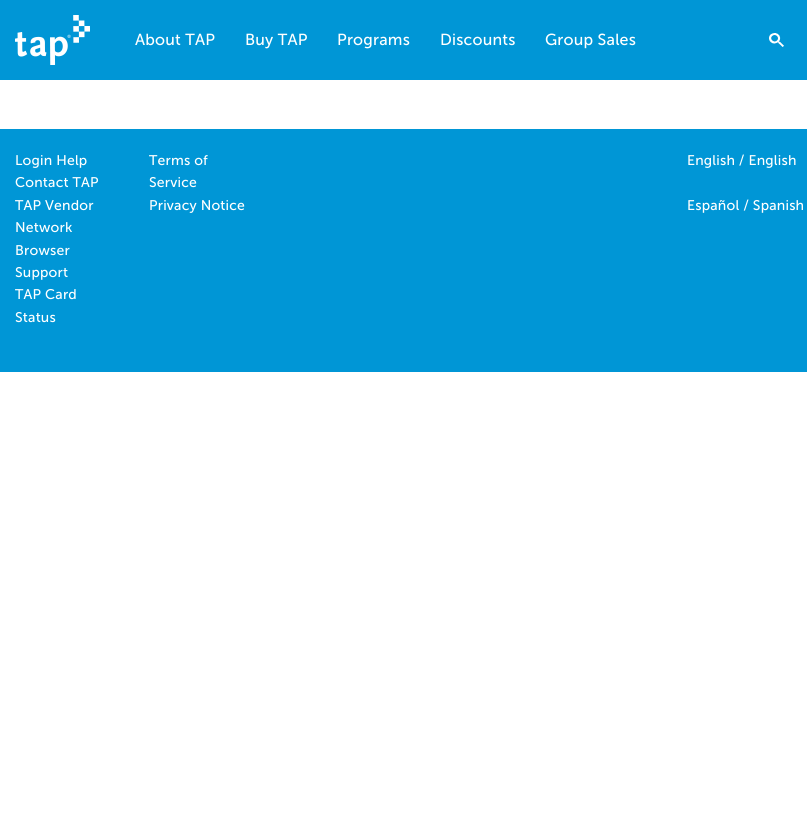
import math
import cairo

surface = cairo.ImageSurface(cairo.FORMAT_RGB24, 807, 815)
ctx = cairo.Context(surface)
options = cairo.FontOptions()
options.set_hint_metrics(cairo.HINT_METRICS_OFF)
options.set_hint_style(cairo.HINT_STYLE_NONE)
ctx.set_font_options(options)
ctx.set_miter_limit(4)


def spaced_text(x, y, s, letter, word):
    ctx.move_to(x, y)
    for ch in s:
        ctx.show_text(ch)
        ctx.rel_move_to(letter + word * (ch == ' '), 0)


def picture(path, x, y, w, h):
    ctx.save()
    ctx.set_source_surface(cairo.ImageSurface.create_from_png(path), x, y)
    ctx.rectangle(x, y, w, h)
    ctx.fill()
    ctx.restore()


ctx.set_source_rgb(1, 1, 1)
ctx.paint()
ctx.set_source_rgb(0, 0.588, 0.839)
ctx.rectangle(0, 0, 807, 80)
ctx.fill()
picture("img1.png", 15, 15, 75, 50)
ctx.select_font_face("Museo Sans")
ctx.set_font_size(16)
ctx.set_source_rgb(1, 1, 1)
spaced_text(135, 45, "About TAP", 0.2, 0)
spaced_text(245, 45, "Buy TAP", 0.2, 0)
spaced_text(337, 45, "Programs", 0.2, 0)
spaced_text(440, 45, "Discounts", 0.2, 0)
spaced_text(545, 45, "Group Sales", 0.2, 0)
picture("img2.png", 769, 33, 15, 14)
ctx.set_source_rgb(0, 0.588, 0.839)
ctx.rectangle(0, 129, 807, 243)
ctx.fill()
ctx.set_font_size(14)
ctx.set_source_rgb(1, 1, 1)
spaced_text(15, 165, "Login Help", 0.2, 0)
spaced_text(15, 187, "Contact TAP", 0.2, 0)
spaced_text(15, 210, "TAP Vendor", 0.2, 0)
spaced_text(15, 232, "Network", 0.2, 0)
spaced_text(15, 255, "Browser", 0.2, 0)
spaced_text(15, 277, "Support", 0.2, 0)
spaced_text(15, 299, "TAP Card", 0.2, 0)
spaced_text(15, 322, "Status", 0.2, 0)
spaced_text(149, 165, "Terms of", 0.2, 0)
spaced_text(149, 187, "Service", 0.2, 0)
spaced_text(149, 210, "Privacy Notice", 0.2, 0)
spaced_text(687, 165, "English / English", 0.2, 0)
spaced_text(687, 210, "Español / Spanish", 0.2, 0)
surface.write_to_png("page.png")
